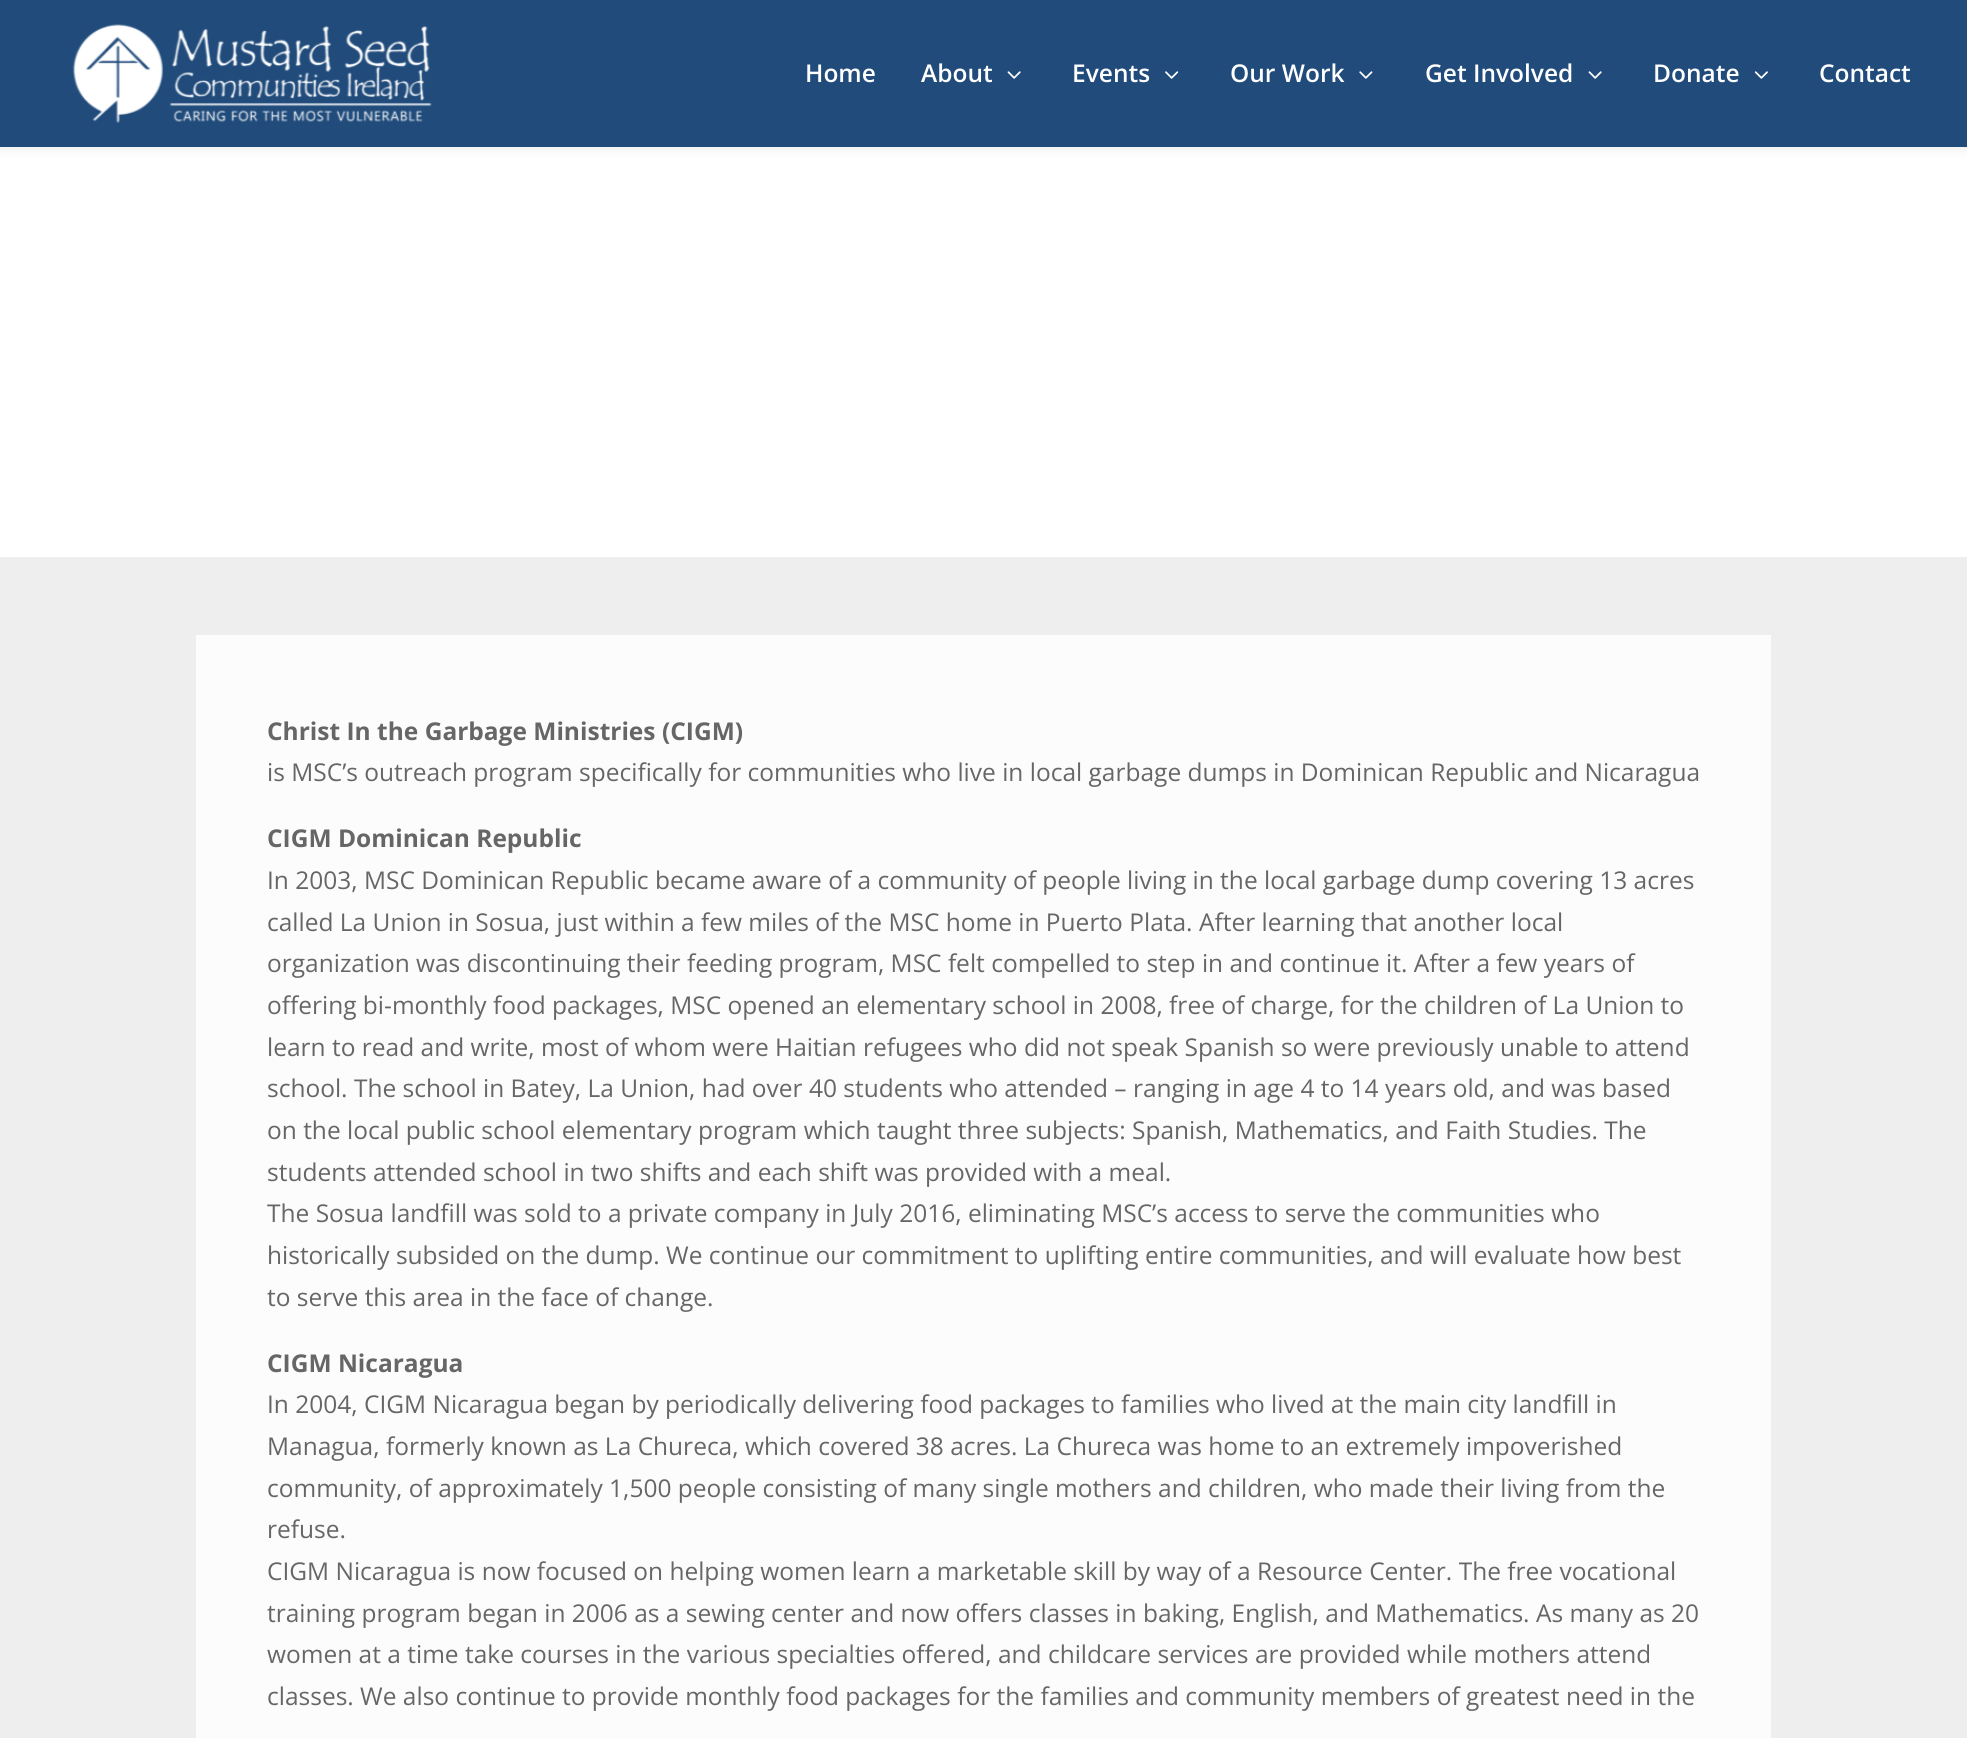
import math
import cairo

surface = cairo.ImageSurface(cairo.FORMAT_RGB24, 1967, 1738)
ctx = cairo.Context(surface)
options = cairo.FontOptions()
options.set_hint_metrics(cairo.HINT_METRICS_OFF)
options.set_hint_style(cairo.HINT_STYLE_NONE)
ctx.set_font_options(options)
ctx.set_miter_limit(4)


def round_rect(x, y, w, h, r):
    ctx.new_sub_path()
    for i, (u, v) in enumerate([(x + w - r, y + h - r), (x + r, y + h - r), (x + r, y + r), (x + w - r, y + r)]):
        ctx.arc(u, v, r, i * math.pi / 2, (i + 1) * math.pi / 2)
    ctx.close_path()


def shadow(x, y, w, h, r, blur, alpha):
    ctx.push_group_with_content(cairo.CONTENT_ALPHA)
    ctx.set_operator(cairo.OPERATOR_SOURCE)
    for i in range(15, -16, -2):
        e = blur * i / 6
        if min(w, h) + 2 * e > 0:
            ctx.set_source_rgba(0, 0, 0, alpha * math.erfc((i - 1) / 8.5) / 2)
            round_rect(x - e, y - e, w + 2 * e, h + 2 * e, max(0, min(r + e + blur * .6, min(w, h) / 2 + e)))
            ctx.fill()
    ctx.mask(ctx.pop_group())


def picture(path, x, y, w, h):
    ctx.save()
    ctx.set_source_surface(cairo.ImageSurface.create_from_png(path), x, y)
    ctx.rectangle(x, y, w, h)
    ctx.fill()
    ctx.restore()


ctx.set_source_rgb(1, 1, 1)
ctx.paint()
ctx.set_source_rgb(0, 0, 0)
shadow(0, 0, 1967, 147, 0, 6, 0.1)
ctx.set_source_rgb(0.125, 0.294, 0.482)
ctx.rectangle(0, 0, 1967, 147)
ctx.fill()
picture("img1.png", 72, 24, 360, 99)
ctx.select_font_face("Open Sans SemiBold")
ctx.set_font_size(24.5)
ctx.set_source_rgb(1, 1, 1)
ctx.move_to(805, 82)
ctx.show_text("Home")
ctx.move_to(921, 82)
ctx.show_text("About")
picture("img2.png", 1007, 71, 14, 8)
ctx.move_to(1072, 82)
ctx.show_text("Events")
picture("img3.png", 1165, 71, 14, 8)
ctx.move_to(1230, 82)
ctx.show_text("Our Work")
picture("img4.png", 1359, 71, 14, 8)
ctx.move_to(1425, 82)
ctx.show_text("Get Involved")
picture("img2.png", 1588, 71, 14, 8)
ctx.move_to(1653, 82)
ctx.show_text("Donate")
picture("img5.png", 1754, 71, 14, 8)
ctx.move_to(1819, 82)
ctx.show_text("Contact")
ctx.set_source_rgb(0.933, 0.933, 0.933)
ctx.rectangle(0, 557, 1967, 1181)
ctx.fill()
ctx.set_source_rgb(0.988, 0.988, 0.988)
ctx.rectangle(196, 635, 1575, 1103)
ctx.fill()
ctx.select_font_face("Open Sans", cairo.FONT_SLANT_NORMAL, cairo.FONT_WEIGHT_BOLD)
ctx.set_source_rgb(0.4, 0.4, 0.4)
ctx.move_to(267, 740)
ctx.show_text("Christ In the Garbage Ministries (CIGM)")
ctx.select_font_face("Open Sans")
ctx.move_to(267, 781)
ctx.show_text("is MSC’s outreach program specifically for communities who live in local garbage dumps in Dominican Republic and Nicaragua")
ctx.select_font_face("Open Sans", cairo.FONT_SLANT_NORMAL, cairo.FONT_WEIGHT_BOLD)
ctx.move_to(267, 847)
ctx.show_text("CIGM Dominican Republic")
ctx.select_font_face("Open Sans")
ctx.move_to(267, 889)
ctx.show_text("In 2003, MSC Dominican Republic became aware of a community of people living in the local garbage dump covering 13 acres")
ctx.move_to(267, 931)
ctx.show_text("called La Union in Sosua, just within a few miles of the MSC home in Puerto Plata. After learning that another local")
ctx.move_to(267, 972)
ctx.show_text("organization was discontinuing their feeding program, MSC felt compelled to step in and continue it. After a few years of")
ctx.move_to(267, 1014)
ctx.show_text("offering bi-monthly food packages, MSC opened an elementary school in 2008, free of charge, for the children of La Union to")
ctx.move_to(267, 1056)
ctx.show_text("learn to read and write, most of whom were Haitian refugees who did not speak Spanish so were previously unable to attend")
ctx.move_to(267, 1097)
ctx.show_text("school. The school in Batey, La Union, had over 40 students who attended – ranging in age 4 to 14 years old, and was based")
ctx.move_to(267, 1139)
ctx.show_text("on the local public school elementary program which taught three subjects: Spanish, Mathematics, and Faith Studies. The")
ctx.move_to(267, 1181)
ctx.show_text("students attended school in two shifts and each shift was provided with a meal.")
ctx.move_to(267, 1222)
ctx.show_text("The Sosua landfill was sold to a private company in July 2016, eliminating MSC’s access to serve the communities who")
ctx.move_to(267, 1264)
ctx.show_text("historically subsided on the dump. We continue our commitment to uplifting entire communities, and will evaluate how best")
ctx.move_to(267, 1306)
ctx.show_text("to serve this area in the face of change.")
ctx.select_font_face("Open Sans", cairo.FONT_SLANT_NORMAL, cairo.FONT_WEIGHT_BOLD)
ctx.move_to(267, 1372)
ctx.show_text("CIGM Nicaragua")
ctx.select_font_face("Open Sans")
ctx.move_to(267, 1413)
ctx.show_text("In 2004, CIGM Nicaragua began by periodically delivering food packages to families who lived at the main city landfill in")
ctx.move_to(267, 1455)
ctx.show_text("Managua, formerly known as La Chureca, which covered 38 acres. La Chureca was home to an extremely impoverished")
ctx.move_to(267, 1497)
ctx.show_text("community, of approximately 1,500 people consisting of many single mothers and children, who made their living from the")
ctx.move_to(267, 1538)
ctx.show_text("refuse.")
ctx.move_to(267, 1580)
ctx.show_text("CIGM Nicaragua is now focused on helping women learn a marketable skill by way of a Resource Center. The free vocational")
ctx.move_to(267, 1622)
ctx.show_text("training program began in 2006 as a sewing center and now offers classes in baking, English, and Mathematics. As many as 20")
ctx.move_to(267, 1663)
ctx.show_text("women at a time take courses in the various specialties offered, and childcare services are provided while mothers attend")
ctx.move_to(267, 1705)
ctx.show_text("classes. We also continue to provide monthly food packages for the families and community members of greatest need in the")
surface.write_to_png("page.png")
